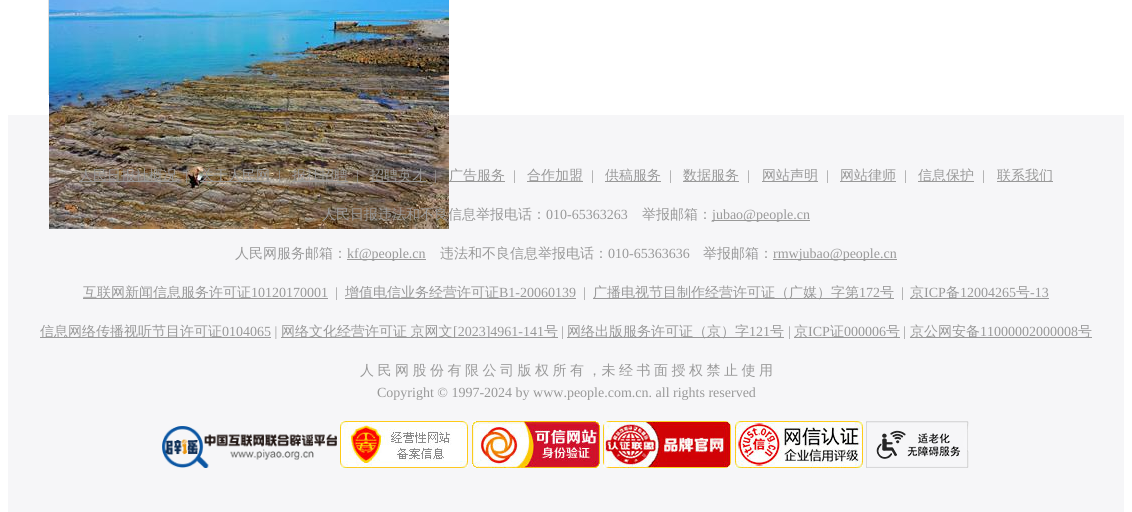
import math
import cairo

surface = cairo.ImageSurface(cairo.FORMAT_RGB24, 1132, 512)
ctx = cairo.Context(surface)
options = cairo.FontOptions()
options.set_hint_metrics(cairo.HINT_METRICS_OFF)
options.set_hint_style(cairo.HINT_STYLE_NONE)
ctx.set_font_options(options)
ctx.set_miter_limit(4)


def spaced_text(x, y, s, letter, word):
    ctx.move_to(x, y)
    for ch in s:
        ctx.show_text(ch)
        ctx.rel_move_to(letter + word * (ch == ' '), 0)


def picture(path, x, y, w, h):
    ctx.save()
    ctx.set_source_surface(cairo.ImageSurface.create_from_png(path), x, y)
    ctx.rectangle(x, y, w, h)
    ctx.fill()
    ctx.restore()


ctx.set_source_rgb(1, 1, 1)
ctx.paint()
ctx.rectangle(48.5, -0.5, 191, 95)
ctx.set_source_rgb(0.867, 0.867, 0.867)
ctx.set_line_width(1)
ctx.stroke()
ctx.set_source_rgb(0.961, 0.961, 0.969)
ctx.rectangle(8, 115, 1116, 397)
ctx.fill()
picture("img1.png", 49, 0, 400, 229)
ctx.set_source_rgb(0.6, 0.6, 0.6)
ctx.rectangle(79, 181, 98, 1)
ctx.fill()
ctx.select_font_face("WenQuanYi Zen Hei Medium")
ctx.set_font_size(14)
ctx.move_to(79, 180)
ctx.show_text("人民日报社概况")
ctx.select_font_face("Liberation Serif")
ctx.move_to(185, 180)
ctx.show_text("|")
ctx.rectangle(200, 181, 70, 1)
ctx.fill()
ctx.select_font_face("WenQuanYi Zen Hei Medium")
ctx.move_to(200, 180)
ctx.show_text("关于人民网")
ctx.select_font_face("Liberation Serif")
ctx.move_to(278, 180)
ctx.show_text("|")
ctx.rectangle(292, 181, 56, 1)
ctx.fill()
ctx.select_font_face("WenQuanYi Zen Hei Medium")
ctx.move_to(292, 180)
ctx.show_text("报社招聘")
ctx.select_font_face("Liberation Serif")
ctx.move_to(356, 180)
ctx.show_text("|")
ctx.rectangle(370, 181, 56, 1)
ctx.fill()
ctx.select_font_face("WenQuanYi Zen Hei Medium")
ctx.move_to(370, 180)
ctx.show_text("招聘英才")
ctx.select_font_face("Liberation Serif")
ctx.move_to(434, 180)
ctx.show_text("|")
ctx.rectangle(449, 181, 56, 1)
ctx.fill()
ctx.select_font_face("WenQuanYi Zen Hei Medium")
ctx.move_to(449, 180)
ctx.show_text("广告服务")
ctx.select_font_face("Liberation Serif")
ctx.move_to(513, 180)
ctx.show_text("|")
ctx.rectangle(527, 181, 56, 1)
ctx.fill()
ctx.select_font_face("WenQuanYi Zen Hei Medium")
ctx.move_to(527, 180)
ctx.show_text("合作加盟")
ctx.select_font_face("Liberation Serif")
ctx.move_to(591, 180)
ctx.show_text("|")
ctx.rectangle(605, 181, 56, 1)
ctx.fill()
ctx.select_font_face("WenQuanYi Zen Hei Medium")
ctx.move_to(605, 180)
ctx.show_text("供稿服务")
ctx.select_font_face("Liberation Serif")
ctx.move_to(669, 180)
ctx.show_text("|")
ctx.rectangle(683, 181, 56, 1)
ctx.fill()
ctx.select_font_face("WenQuanYi Zen Hei Medium")
ctx.move_to(683, 180)
ctx.show_text("数据服务")
ctx.select_font_face("Liberation Serif")
ctx.move_to(747, 180)
ctx.show_text("|")
ctx.rectangle(762, 181, 56, 1)
ctx.fill()
ctx.select_font_face("WenQuanYi Zen Hei Medium")
ctx.move_to(762, 180)
ctx.show_text("网站声明")
ctx.select_font_face("Liberation Serif")
ctx.move_to(826, 180)
ctx.show_text("|")
ctx.rectangle(840, 181, 56, 1)
ctx.fill()
ctx.select_font_face("WenQuanYi Zen Hei Medium")
ctx.move_to(840, 180)
ctx.show_text("网站律师")
ctx.select_font_face("Liberation Serif")
ctx.move_to(904, 180)
ctx.show_text("|")
ctx.rectangle(918, 181, 56, 1)
ctx.fill()
ctx.select_font_face("WenQuanYi Zen Hei Medium")
ctx.move_to(918, 180)
ctx.show_text("信息保护")
ctx.select_font_face("Liberation Serif")
ctx.move_to(982, 180)
ctx.show_text("|")
ctx.rectangle(997, 181, 56, 1)
ctx.fill()
ctx.select_font_face("WenQuanYi Zen Hei Medium")
ctx.move_to(997, 180)
ctx.show_text("联系我们")
ctx.move_to(322, 219)
ctx.show_text("人民日报违法和不良信息举报电话：")
ctx.select_font_face("Liberation Serif")
ctx.move_to(546, 219)
ctx.show_text("010-65363263")
ctx.select_font_face("WenQuanYi Zen Hei Medium")
ctx.move_to(642, 219)
ctx.show_text("举报邮箱：")
ctx.rectangle(712, 220, 98, 1)
ctx.fill()
ctx.select_font_face("Liberation Serif")
ctx.move_to(712, 219)
ctx.show_text("jubao@people.cn")
ctx.select_font_face("WenQuanYi Zen Hei Medium")
ctx.move_to(235, 258)
ctx.show_text("人民网服务邮箱：")
ctx.rectangle(347, 259, 79, 1)
ctx.fill()
ctx.select_font_face("Liberation Serif")
ctx.move_to(347, 258)
ctx.show_text("kf@people.cn")
ctx.select_font_face("WenQuanYi Zen Hei Medium")
ctx.move_to(440, 258)
ctx.show_text("违法和不良信息举报电话：")
ctx.select_font_face("Liberation Serif")
ctx.move_to(608, 258)
ctx.show_text("010-65363636")
ctx.select_font_face("WenQuanYi Zen Hei Medium")
ctx.move_to(703, 258)
ctx.show_text("举报邮箱：")
ctx.rectangle(773, 259, 124, 1)
ctx.fill()
ctx.select_font_face("Liberation Serif")
ctx.move_to(773, 258)
ctx.show_text("rmwjubao@people.cn")
ctx.rectangle(83, 298, 245, 1)
ctx.fill()
ctx.select_font_face("WenQuanYi Zen Hei Medium")
ctx.move_to(83, 297)
ctx.show_text("互联网新闻信息服务许可证")
ctx.select_font_face("Liberation Serif")
ctx.move_to(251, 297)
ctx.show_text("10120170001")
ctx.move_to(335, 297)
ctx.show_text("|")
ctx.rectangle(345, 298, 231, 1)
ctx.fill()
ctx.select_font_face("WenQuanYi Zen Hei Medium")
ctx.move_to(345, 297)
ctx.show_text("增值电信业务经营许可证")
ctx.select_font_face("Liberation Serif")
ctx.move_to(499, 297)
ctx.show_text("B1-20060139")
ctx.move_to(583, 297)
ctx.show_text("|")
ctx.rectangle(593, 298, 301, 1)
ctx.fill()
ctx.select_font_face("WenQuanYi Zen Hei Medium")
ctx.move_to(593, 297)
ctx.show_text("广播电视节目制作经营许可证（广媒）字第")
ctx.select_font_face("Liberation Serif")
ctx.move_to(859, 297)
ctx.show_text("172")
ctx.select_font_face("WenQuanYi Zen Hei Medium")
ctx.move_to(880, 297)
ctx.show_text("号")
ctx.select_font_face("Liberation Serif")
ctx.move_to(901, 297)
ctx.show_text("|")
ctx.rectangle(910, 298, 139, 1)
ctx.fill()
ctx.select_font_face("WenQuanYi Zen Hei Medium")
ctx.move_to(910, 297)
ctx.show_text("京")
ctx.select_font_face("Liberation Serif")
ctx.move_to(924, 297)
ctx.show_text("ICP")
ctx.select_font_face("WenQuanYi Zen Hei Medium")
ctx.move_to(946, 297)
ctx.show_text("备")
ctx.select_font_face("Liberation Serif")
ctx.move_to(960, 297)
ctx.show_text("12004265")
ctx.select_font_face("WenQuanYi Zen Hei Medium")
ctx.move_to(1016, 297)
ctx.show_text("号")
ctx.select_font_face("Liberation Serif")
ctx.move_to(1030, 297)
ctx.show_text("-13")
ctx.rectangle(40, 337, 231, 1)
ctx.fill()
ctx.select_font_face("WenQuanYi Zen Hei Medium")
ctx.move_to(40, 336)
ctx.show_text("信息网络传播视听节目许可证")
ctx.select_font_face("Liberation Serif")
ctx.move_to(222, 336)
ctx.show_text("0104065 |")
ctx.rectangle(281, 337, 277, 1)
ctx.fill()
ctx.select_font_face("WenQuanYi Zen Hei Medium")
spaced_text(281, 336, "网络文化经营许可证 京网文", 0, -0.7)
ctx.select_font_face("Liberation Serif")
ctx.move_to(453, 336)
ctx.show_text("[2023]4961-141")
ctx.select_font_face("WenQuanYi Zen Hei Medium")
ctx.move_to(544, 336)
ctx.show_text("号")
ctx.select_font_face("Liberation Serif")
ctx.move_to(561, 336)
ctx.show_text("|")
ctx.rectangle(567, 337, 217, 1)
ctx.fill()
ctx.select_font_face("WenQuanYi Zen Hei Medium")
ctx.move_to(567, 336)
ctx.show_text("网络出版服务许可证（京）字")
ctx.select_font_face("Liberation Serif")
ctx.move_to(749, 336)
ctx.show_text("121")
ctx.select_font_face("WenQuanYi Zen Hei Medium")
ctx.move_to(770, 336)
ctx.show_text("号")
ctx.select_font_face("Liberation Serif")
ctx.move_to(788, 336)
ctx.show_text("|")
ctx.rectangle(794, 337, 106, 1)
ctx.fill()
ctx.select_font_face("WenQuanYi Zen Hei Medium")
ctx.move_to(794, 336)
ctx.show_text("京")
ctx.select_font_face("Liberation Serif")
ctx.move_to(808, 336)
ctx.show_text("ICP")
ctx.select_font_face("WenQuanYi Zen Hei Medium")
ctx.move_to(830, 336)
ctx.show_text("证")
ctx.select_font_face("Liberation Serif")
ctx.move_to(844, 336)
ctx.show_text("000006")
ctx.select_font_face("WenQuanYi Zen Hei Medium")
ctx.move_to(886, 336)
ctx.show_text("号")
ctx.select_font_face("Liberation Serif")
ctx.move_to(903, 336)
ctx.show_text("|")
ctx.rectangle(910, 337, 182, 1)
ctx.fill()
ctx.select_font_face("WenQuanYi Zen Hei Medium")
ctx.move_to(910, 336)
ctx.show_text("京公网安备")
ctx.select_font_face("Liberation Serif")
ctx.move_to(980, 336)
ctx.show_text("11000002000008")
ctx.select_font_face("WenQuanYi Zen Hei Medium")
ctx.move_to(1078, 336)
ctx.show_text("号")
spaced_text(360, 375, "人 民 网 股 份 有 限 公 司 版 权 所 有 ，未 经 书 面 授 权 禁 止 使 用", 0, -0.7)
ctx.select_font_face("Liberation Serif")
ctx.move_to(377, 397)
ctx.show_text("Copyright © 1997-2024 by www.people.com.cn. all rights reserved")
picture("img2.png", 162, 426, 175, 42)
picture("img3.png", 340, 421, 128, 47)
picture("img4.png", 472, 421, 128, 47)
picture("img5.png", 603, 421, 128, 47)
picture("img6.png", 735, 421, 128, 47)
picture("img7.png", 866, 421, 103, 47)
surface.write_to_png("page.png")
